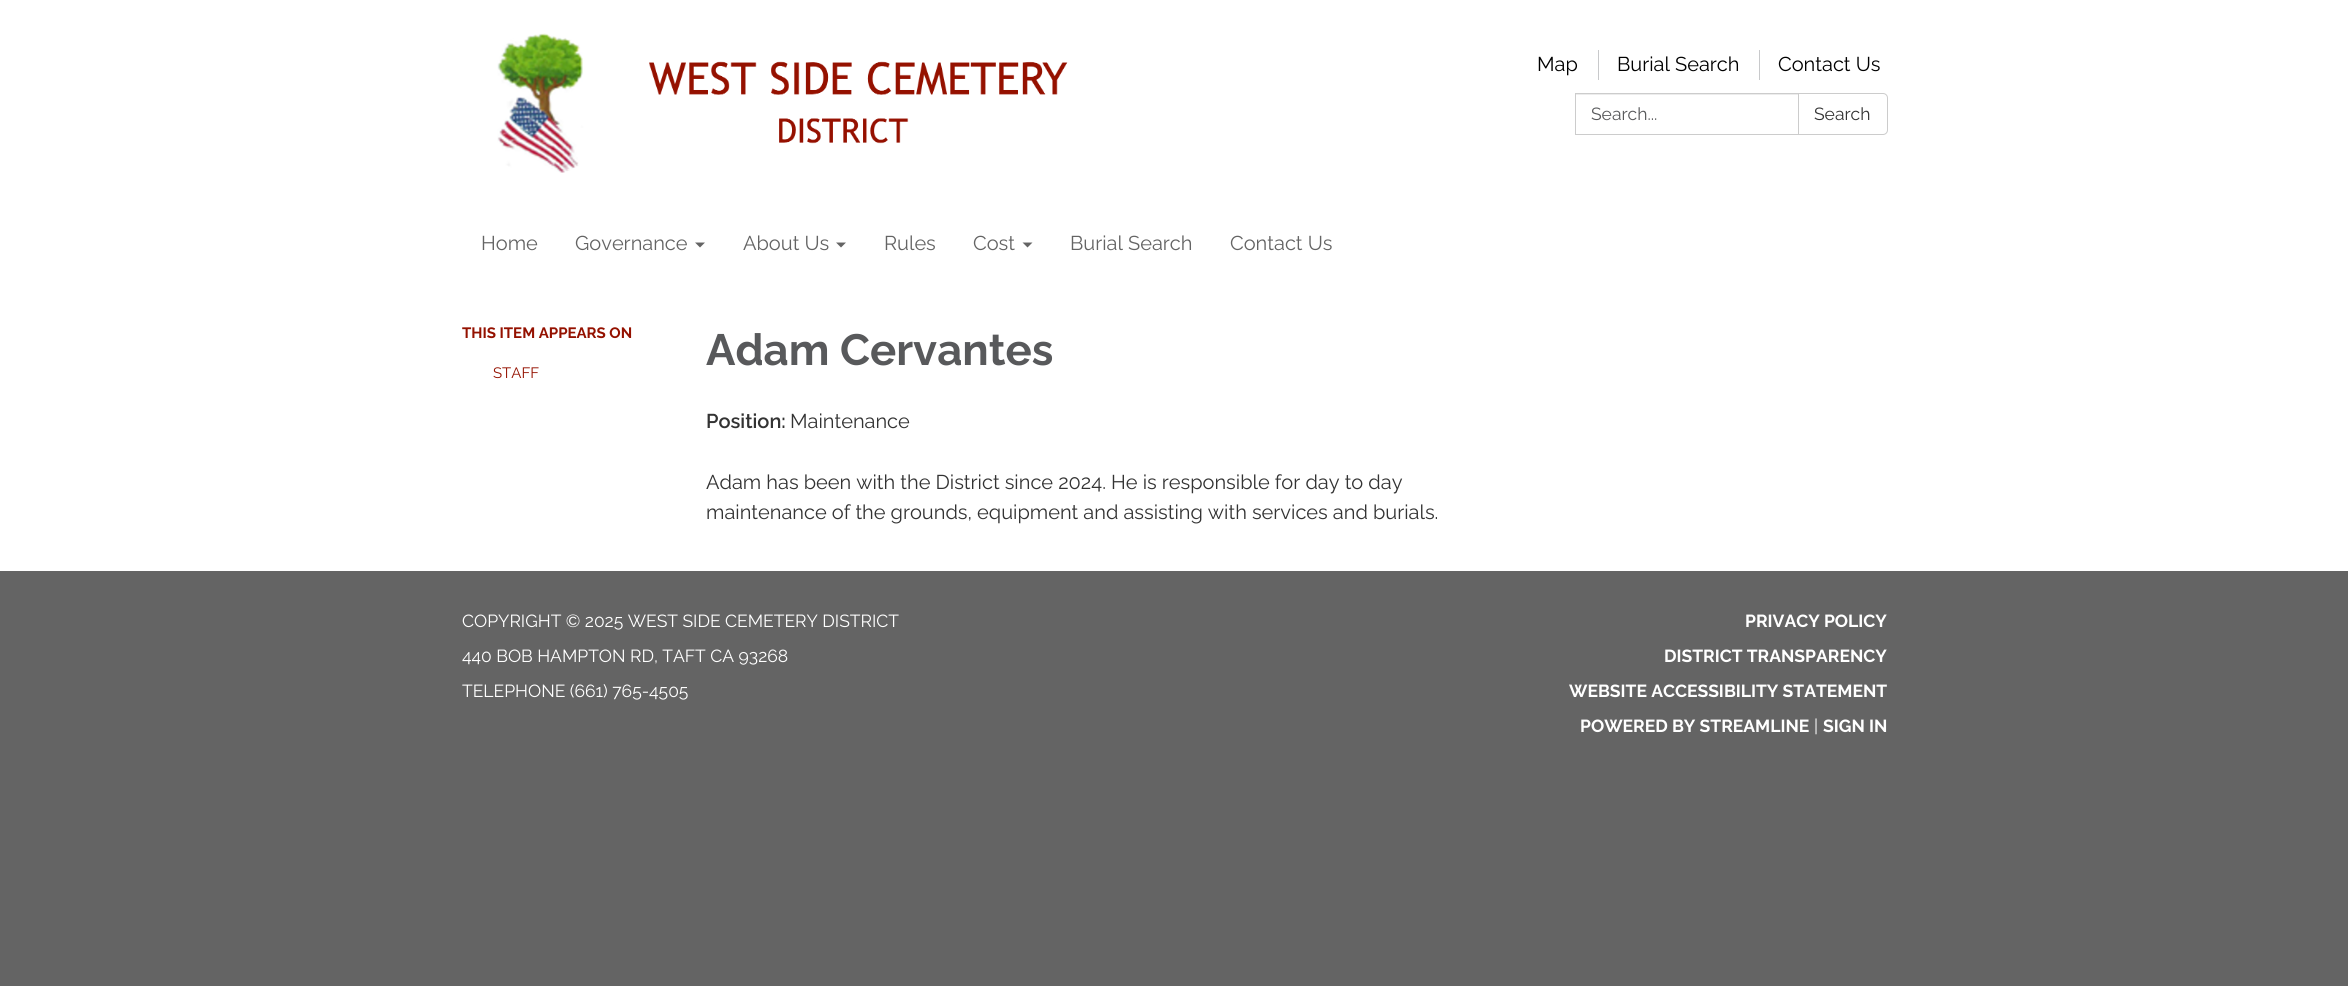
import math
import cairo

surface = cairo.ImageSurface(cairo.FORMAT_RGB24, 2348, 986)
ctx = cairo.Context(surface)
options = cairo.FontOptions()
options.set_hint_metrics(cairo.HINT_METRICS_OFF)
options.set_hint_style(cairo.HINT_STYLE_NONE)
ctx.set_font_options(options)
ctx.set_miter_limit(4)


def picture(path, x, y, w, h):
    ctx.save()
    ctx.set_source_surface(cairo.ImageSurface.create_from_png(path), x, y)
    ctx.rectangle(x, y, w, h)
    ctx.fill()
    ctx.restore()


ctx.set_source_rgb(0.392, 0.392, 0.392)
ctx.paint()
ctx.set_source_rgb(1, 1, 1)
ctx.rectangle(0, 0, 2348, 213)
ctx.fill()
picture("img1.png", 497, 33, 571, 140)
ctx.select_font_face("Raleway")
ctx.set_font_size(20)
ctx.set_source_rgb(0, 0, 0)
ctx.move_to(1537, 71)
ctx.show_text("Map")
ctx.set_source_rgb(0.784, 0.788, 0.796)
ctx.rectangle(1598, 50, 1, 30)
ctx.fill()
ctx.set_source_rgb(0, 0, 0)
ctx.move_to(1617, 71)
ctx.show_text("Burial Search")
ctx.set_source_rgb(0.784, 0.788, 0.796)
ctx.rectangle(1759, 50, 1, 30)
ctx.fill()
ctx.set_source_rgb(0, 0, 0)
ctx.move_to(1778, 71)
ctx.show_text("Contact Us")
ctx.set_source_rgb(0.925, 0.925, 0.925)
ctx.rectangle(1576, 94, 222, 1)
ctx.fill()
ctx.rectangle(1575.5, 93.5, 223, 41)
ctx.set_source_rgb(0.8, 0.8, 0.8)
ctx.set_line_width(1)
ctx.stroke()
ctx.set_font_size(17.5)
ctx.set_source_rgb(0.345, 0.349, 0.357)
ctx.move_to(1591, 120)
ctx.show_text("Search...")
ctx.set_source_rgb(1, 1, 1)
ctx.new_path()
ctx.move_to(1798.5, 93.5)
ctx.line_to(1883, 93.5)
ctx.curve_to(1885.5, 93.5, 1887.5, 95.5, 1887.5, 98)
ctx.line_to(1887.5, 130)
ctx.curve_to(1887.5, 132.5, 1885.5, 134.5, 1883, 134.5)
ctx.line_to(1798.5, 134.5)
ctx.close_path()
ctx.fill_preserve()
ctx.set_source_rgb(0.8, 0.8, 0.8)
ctx.stroke()
ctx.set_source_rgb(0.2, 0.2, 0.2)
ctx.move_to(1814, 120)
ctx.show_text("Search")
ctx.set_source_rgb(1, 1, 1)
ctx.rectangle(0, 213, 2348, 358)
ctx.fill()
ctx.set_font_size(20)
ctx.set_source_rgb(0.392, 0.392, 0.392)
ctx.move_to(481, 250)
ctx.show_text("Home")
ctx.move_to(575, 250)
ctx.show_text("Governance")
ctx.new_path()
ctx.move_to(695, 242.5)
ctx.line_to(705, 242.5)
ctx.line_to(700, 247.5)
ctx.close_path()
ctx.fill()
ctx.move_to(743, 250)
ctx.show_text("About Us")
ctx.new_path()
ctx.move_to(836, 242.5)
ctx.line_to(846, 242.5)
ctx.line_to(841, 247.5)
ctx.close_path()
ctx.fill()
ctx.move_to(884, 250)
ctx.show_text("Rules")
ctx.move_to(973, 250)
ctx.show_text("Cost")
ctx.new_path()
ctx.move_to(1022.5, 242.5)
ctx.line_to(1032.5, 242.5)
ctx.line_to(1027.5, 247.5)
ctx.close_path()
ctx.fill()
ctx.move_to(1070, 250)
ctx.show_text("Burial Search")
ctx.move_to(1230, 250)
ctx.show_text("Contact Us")
ctx.select_font_face("Raleway", cairo.FONT_SLANT_NORMAL, cairo.FONT_WEIGHT_BOLD)
ctx.set_font_size(15)
ctx.set_source_rgb(0.58, 0.067, 0)
ctx.move_to(462, 338)
ctx.show_text("THIS ITEM APPEARS ON")
ctx.select_font_face("Raleway")
ctx.move_to(493, 378)
ctx.show_text("STAFF")
ctx.select_font_face("Raleway", cairo.FONT_SLANT_NORMAL, cairo.FONT_WEIGHT_BOLD)
ctx.set_font_size(43.75)
ctx.set_source_rgb(0.345, 0.349, 0.357)
ctx.move_to(706, 365)
ctx.show_text("Adam Cervantes")
ctx.select_font_face("Raleway SemiBold")
ctx.set_font_size(20)
ctx.set_source_rgb(0.2, 0.2, 0.2)
ctx.move_to(706, 428)
ctx.show_text("Position:")
ctx.select_font_face("Raleway")
ctx.move_to(790, 428)
ctx.show_text("Maintenance")
ctx.move_to(706, 489)
ctx.show_text("Adam has been with the District since 2024. He is responsible for day to day")
ctx.move_to(706, 519)
ctx.show_text("maintenance of the grounds, equipment and assisting with services and burials.")
ctx.set_font_size(17.5)
ctx.set_source_rgb(1, 1, 1)
ctx.move_to(462, 627)
ctx.show_text("COPYRIGHT © 2025 WEST SIDE CEMETERY DISTRICT")
ctx.move_to(462, 662)
ctx.show_text("440 BOB HAMPTON RD, TAFT CA 93268")
ctx.move_to(462, 697)
ctx.show_text("TELEPHONE (661) 765-4505")
ctx.select_font_face("Raleway", cairo.FONT_SLANT_NORMAL, cairo.FONT_WEIGHT_BOLD)
ctx.move_to(1745, 627)
ctx.show_text("PRIVACY POLICY")
ctx.move_to(1664, 662)
ctx.show_text("DISTRICT TRANSPARENCY")
ctx.move_to(1569, 697)
ctx.show_text("WEBSITE ACCESSIBILITY STATEMENT")
ctx.move_to(1580, 732)
ctx.show_text("POWERED BY STREAMLINE")
ctx.select_font_face("Raleway")
ctx.move_to(1814, 732)
ctx.show_text("|")
ctx.select_font_face("Raleway", cairo.FONT_SLANT_NORMAL, cairo.FONT_WEIGHT_BOLD)
ctx.move_to(1823, 732)
ctx.show_text("SIGN IN")
surface.write_to_png("page.png")
